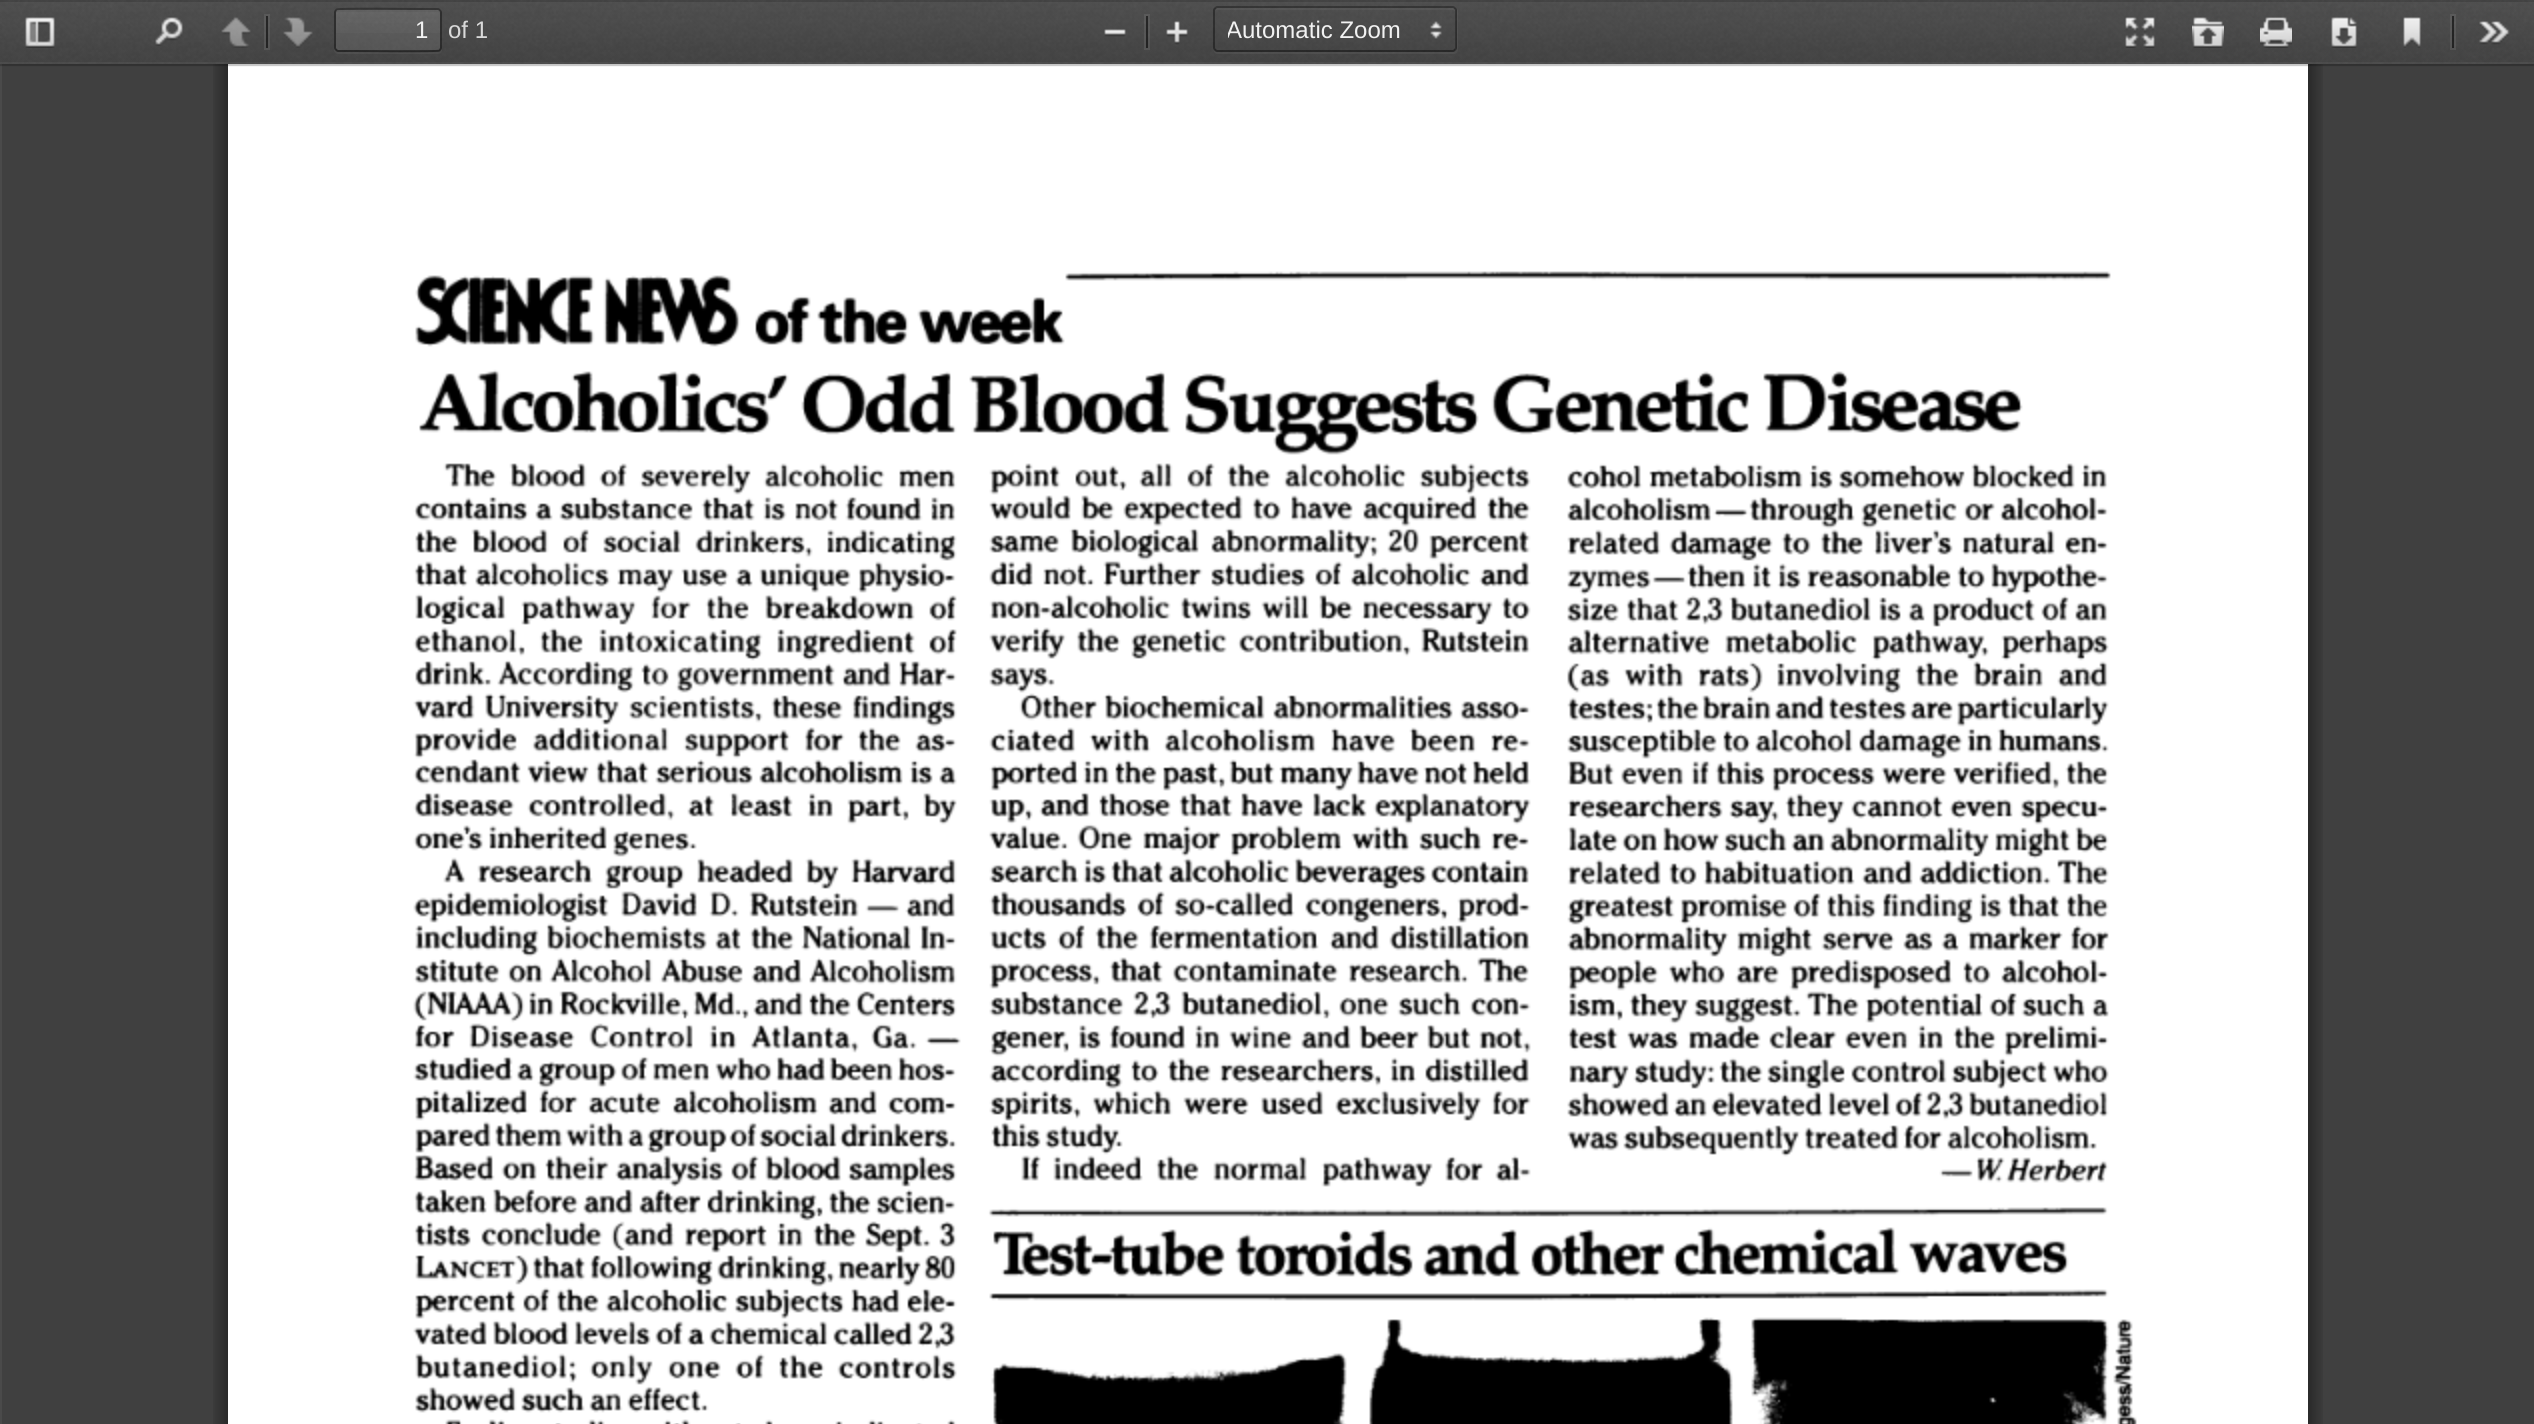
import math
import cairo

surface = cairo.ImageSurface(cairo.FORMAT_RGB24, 2534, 1424)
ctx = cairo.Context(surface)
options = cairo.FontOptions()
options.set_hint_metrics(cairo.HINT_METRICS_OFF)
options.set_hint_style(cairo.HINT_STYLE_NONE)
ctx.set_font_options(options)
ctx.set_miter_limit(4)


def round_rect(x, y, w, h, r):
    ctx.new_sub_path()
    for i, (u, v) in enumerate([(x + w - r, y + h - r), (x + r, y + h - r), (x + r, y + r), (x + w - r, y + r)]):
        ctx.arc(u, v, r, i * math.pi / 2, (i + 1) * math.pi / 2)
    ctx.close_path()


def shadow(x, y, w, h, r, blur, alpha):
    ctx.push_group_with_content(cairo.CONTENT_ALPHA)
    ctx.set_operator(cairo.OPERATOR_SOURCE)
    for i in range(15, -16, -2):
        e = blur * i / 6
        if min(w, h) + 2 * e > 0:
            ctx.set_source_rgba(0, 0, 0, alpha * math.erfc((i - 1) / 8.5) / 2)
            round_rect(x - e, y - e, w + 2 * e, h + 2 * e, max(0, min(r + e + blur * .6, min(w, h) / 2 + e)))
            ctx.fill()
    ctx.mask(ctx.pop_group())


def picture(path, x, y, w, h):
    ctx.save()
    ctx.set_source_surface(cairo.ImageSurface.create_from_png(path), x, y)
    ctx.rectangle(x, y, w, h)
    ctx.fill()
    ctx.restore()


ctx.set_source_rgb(0.251, 0.251, 0.251)
ctx.paint()
ctx.set_source_rgb(0.29, 0.29, 0.29)
ctx.rectangle(0, 64, 2, 1360)
ctx.fill()
ctx.set_source_rgb(1, 1, 1)
ctx.rectangle(228, 64, 2080, 1360)
ctx.fill()
picture("img15.png", 213, 64, 2110, 1360)
ctx.save()
ctx.rectangle(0, 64, 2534, 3)
ctx.clip()
ctx.set_source_rgb(0, 0, 0)
shadow(0, 2, 2534, 64, 0, 1, 0.1)
ctx.restore()
ctx.set_source_rgba(0, 0, 0, 0.15)
ctx.rectangle(0, 64, 2534, 2)
ctx.fill()
picture("img1.png", 0, 0, 2534, 64)
ctx.set_source_rgba(1, 1, 1, 0.05)
ctx.rectangle(0, 62, 2534, 2)
ctx.fill()
ctx.set_source_rgba(0, 0, 0, 0.15)
ctx.rectangle(0, 0, 2534, 2)
ctx.fill()
picture("img2.png", 25, 17, 30, 31)
picture("img3.png", 155, 17, 28, 29)
picture("img4.png", 221, 17, 30, 31)
ctx.rectangle(265, 15, 4, 34)
ctx.set_source_rgba(1, 1, 1, 0.08)
ctx.stroke()
ctx.set_source_rgba(0, 0, 0, 0.5)
ctx.rectangle(266, 16, 2, 32)
ctx.fill()
picture("img5.png", 283, 17, 30, 31)
ctx.set_source_rgba(1, 1, 1, 0.05)
ctx.new_path()
ctx.move_to(334, 48)
ctx.line_to(334, 50)
ctx.curve_to(334, 52, 336, 54, 338, 54)
ctx.line_to(438, 54)
ctx.curve_to(440, 54, 442, 52, 442, 50)
ctx.line_to(442, 48)
ctx.curve_to(442, 50, 440, 52, 438, 52)
ctx.line_to(338, 52)
ctx.curve_to(336, 52, 334, 50, 334, 48)
ctx.close_path()
ctx.fill()
ctx.set_source_rgba(1, 1, 1, 0.09)
round_rect(336, 10, 104, 40, 2)
ctx.fill()
gradient = cairo.LinearGradient(388, 10, 388, 50)
gradient.add_color_stop_rgba(0, 1, 1, 1, 0.05)
gradient.add_color_stop_rgba(1, 1, 1, 1, 0)
ctx.set_source(gradient)
ctx.rectangle(336, 10, 104, 23)
ctx.fill()
ctx.set_source_rgba(0, 0, 0, 0.05)
ctx.new_path()
ctx.move_to(338, 12)
ctx.line_to(438, 12)
ctx.curve_to(439, 12, 440, 13, 440, 14)
ctx.line_to(440, 12)
ctx.curve_to(440, 11, 439, 10, 438, 10)
ctx.line_to(338, 10)
ctx.curve_to(337, 10, 336, 11, 336, 12)
ctx.line_to(336, 14)
ctx.curve_to(336, 13, 337, 12, 338, 12)
ctx.close_path()
ctx.fill()
ctx.new_path()
ctx.move_to(336, 10)
ctx.line_to(336.5, 9.5)
ctx.curve_to(338.5, 8, 412.5, 9, 421.5, 9)
ctx.line_to(438, 9)
ctx.line_to(440, 10)
ctx.set_source_rgba(0, 0, 0, 0.32)
ctx.stroke()
ctx.new_path()
ctx.move_to(440, 10)
ctx.line_to(441, 12)
ctx.line_to(441, 48)
ctx.line_to(440, 50)
ctx.set_source_rgba(0, 0, 0, 0.38)
ctx.stroke()
ctx.new_path()
ctx.move_to(440, 50)
ctx.line_to(439.5, 50.5)
ctx.curve_to(437.5, 52, 363.5, 51, 354.5, 51)
ctx.line_to(338, 51)
ctx.line_to(336, 50)
ctx.set_source_rgba(0, 0, 0, 0.42)
ctx.stroke()
ctx.new_path()
ctx.move_to(336, 50)
ctx.line_to(335, 48)
ctx.line_to(335, 12)
ctx.line_to(336, 10)
ctx.set_source_rgba(0, 0, 0, 0.38)
ctx.stroke()
ctx.select_font_face("Liberation Sans")
ctx.set_font_size(24)
ctx.set_source_rgb(0.949, 0.949, 0.949)
ctx.move_to(415, 38)
ctx.show_text("1")
ctx.set_source_rgb(0.851, 0.851, 0.851)
ctx.move_to(448, 38)
ctx.show_text("of 1")
picture("img6.png", 1104, 29, 22, 8)
ctx.rectangle(1145, 15, 4, 34)
ctx.set_source_rgba(1, 1, 1, 0.08)
ctx.stroke()
ctx.set_source_rgba(0, 0, 0, 0.5)
ctx.rectangle(1146, 16, 2, 32)
ctx.fill()
picture("img7.png", 1166, 21, 22, 24)
ctx.set_source_rgba(1, 1, 1, 0.05)
ctx.new_path()
ctx.move_to(1214, 51)
ctx.curve_to(1214, 53, 1216, 54, 1218, 54)
ctx.line_to(1454, 54)
ctx.curve_to(1456, 54, 1458, 52, 1458, 50)
ctx.line_to(1458, 12)
ctx.curve_to(1458, 11, 1458, 10, 1457, 9)
ctx.line_to(1457, 48)
ctx.curve_to(1457, 50, 1455, 52, 1453, 52)
ctx.line_to(1217, 52)
ctx.curve_to(1216, 52, 1215, 52, 1214, 51)
ctx.close_path()
ctx.fill()
picture("img8.png", 1430, 21, 12, 18)
ctx.new_path()
ctx.move_to(1217, 10)
ctx.line_to(1453, 10)
ctx.curve_to(1454, 10, 1455, 11, 1455, 12)
ctx.line_to(1455, 50)
ctx.curve_to(1456, 49, 1456, 49, 1456, 48)
ctx.line_to(1456, 10)
ctx.curve_to(1456, 9, 1455, 8, 1454, 8)
ctx.line_to(1218, 8)
ctx.curve_to(1217, 8, 1216, 9, 1216, 10)
ctx.close_path()
ctx.fill()
ctx.new_path()
ctx.move_to(1215, 8)
ctx.line_to(1217, 7)
ctx.line_to(1453, 7)
ctx.line_to(1455, 8)
ctx.set_source_rgba(0, 0, 0, 0.32)
ctx.stroke()
ctx.new_path()
ctx.move_to(1455, 8)
ctx.line_to(1456, 10)
ctx.line_to(1456, 48)
ctx.line_to(1455, 50)
ctx.set_source_rgba(0, 0, 0, 0.38)
ctx.stroke()
ctx.new_path()
ctx.move_to(1455, 50)
ctx.line_to(1453, 51)
ctx.line_to(1217, 51)
ctx.line_to(1215, 50)
ctx.set_source_rgba(0, 0, 0, 0.42)
ctx.stroke()
ctx.new_path()
ctx.move_to(1215, 50)
ctx.line_to(1214, 48)
ctx.line_to(1214, 10)
ctx.line_to(1215, 8)
ctx.set_source_rgba(0, 0, 0, 0.38)
ctx.stroke()
ctx.save()
ctx.rectangle(1228, 14, 236, 32)
ctx.clip()
ctx.set_source_rgb(0.949, 0.949, 0.949)
ctx.move_to(1226, 38)
ctx.show_text("Automatic Zoom")
ctx.restore()
picture("img9.png", 2125, 17, 30, 31)
picture("img10.png", 2192, 17, 32, 31)
picture("img11.png", 2260, 17, 32, 31)
picture("img12.png", 2331, 17, 26, 31)
picture("img13.png", 2403, 17, 18, 31)
ctx.rectangle(2451, 15, 4, 34)
ctx.set_source_rgba(1, 1, 1, 0.08)
ctx.stroke()
ctx.set_source_rgba(0, 0, 0, 0.5)
ctx.rectangle(2452, 16, 2, 32)
ctx.fill()
picture("img14.png", 2479, 21, 31, 24)
picture("img16.png", 413, 271, 1724, 1153)
surface.write_to_png("page.png")
